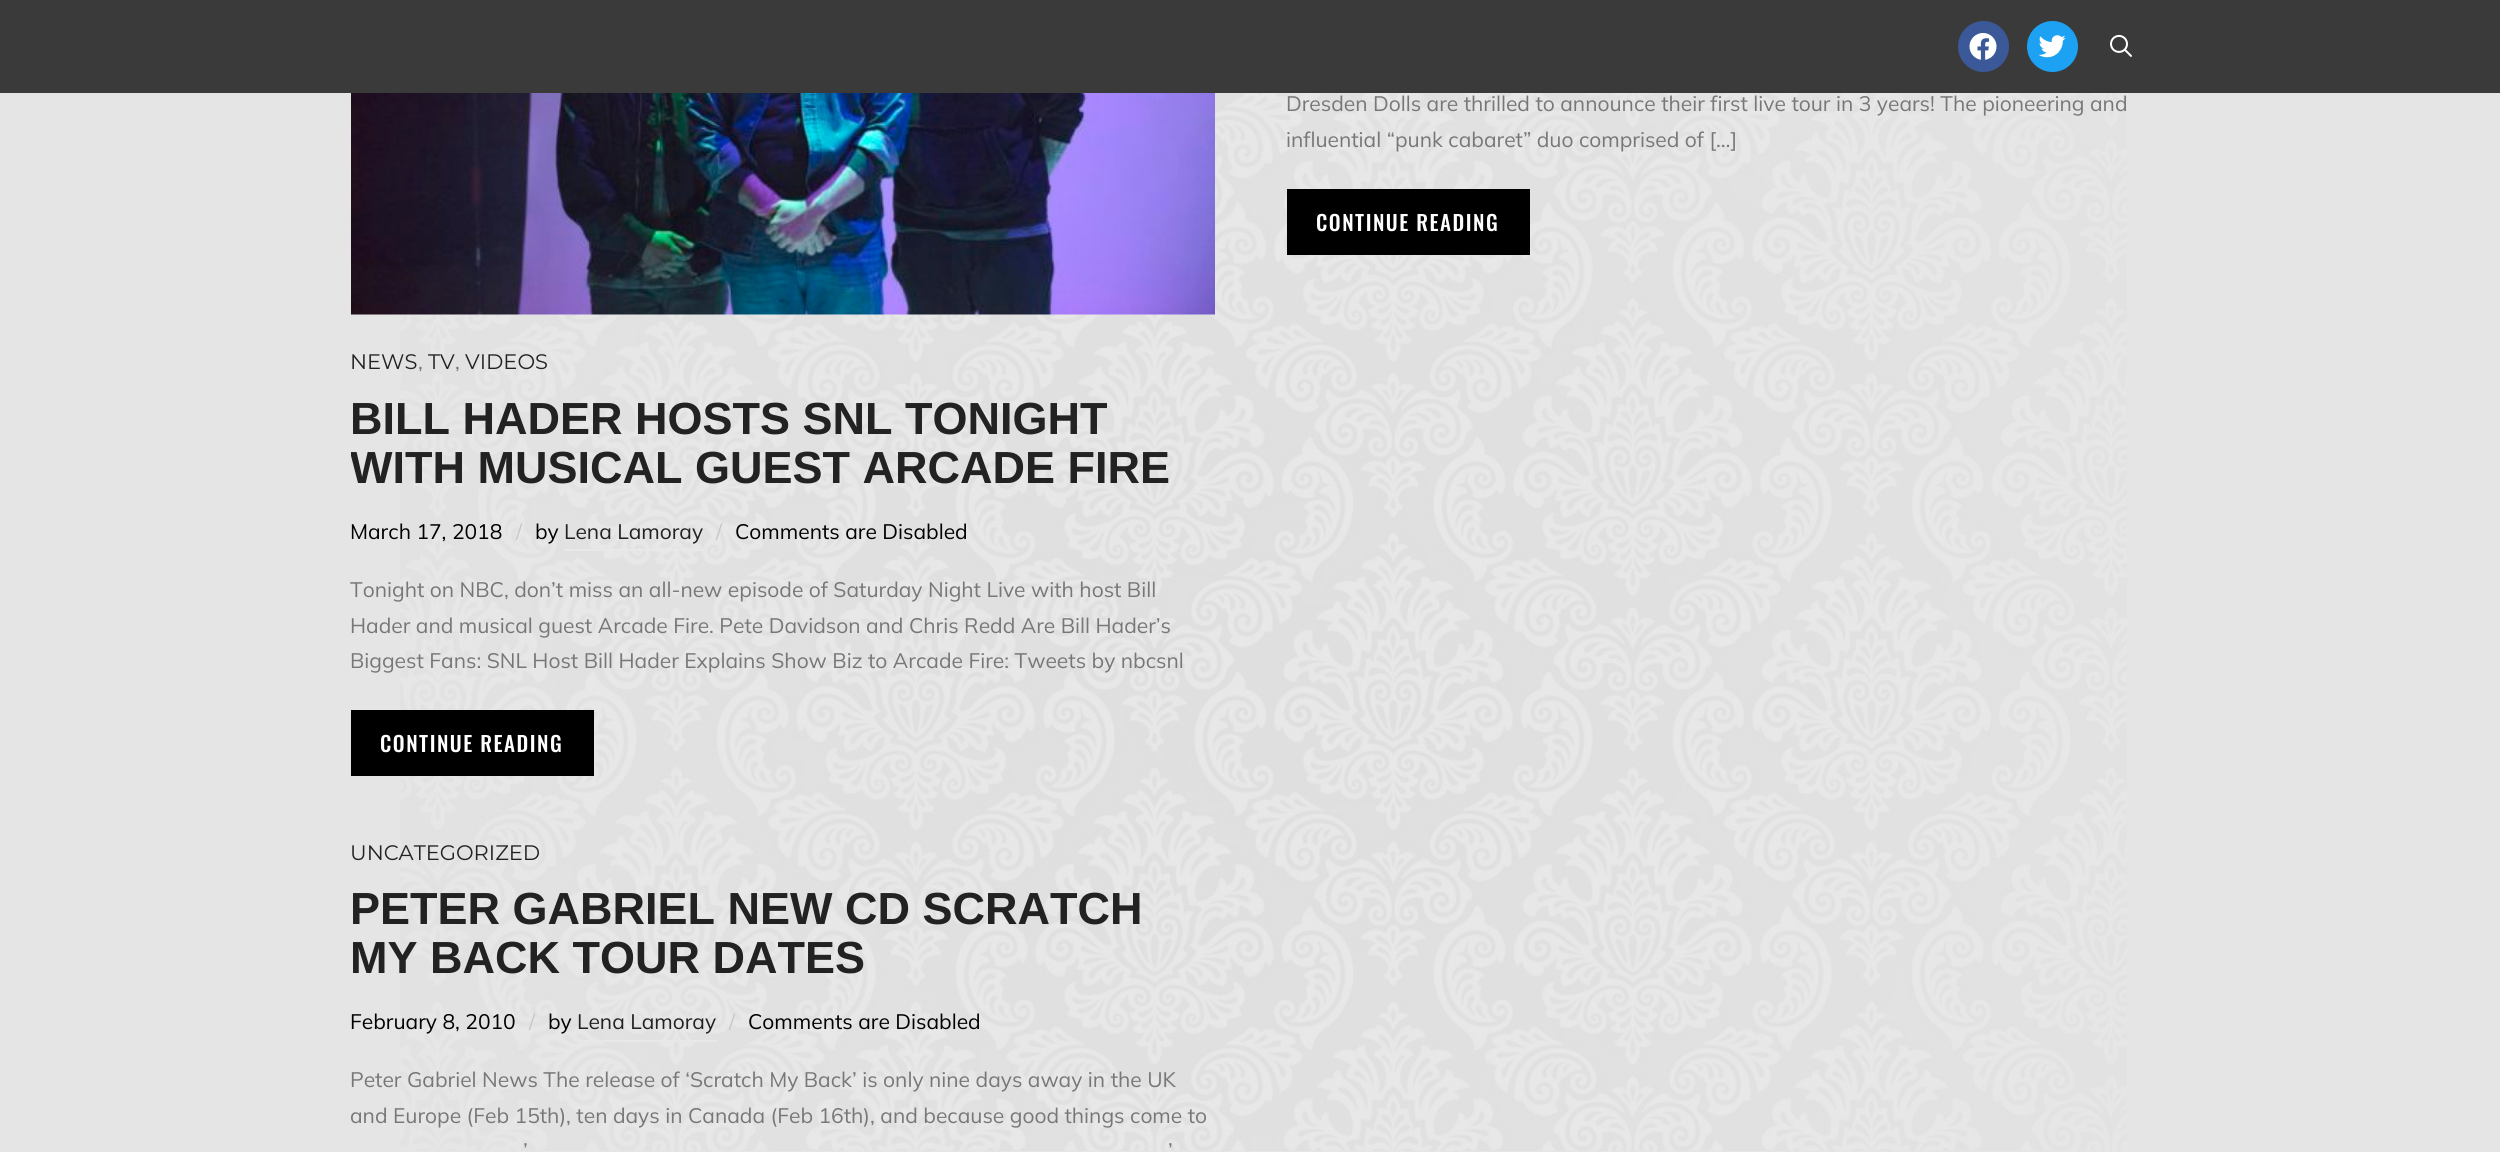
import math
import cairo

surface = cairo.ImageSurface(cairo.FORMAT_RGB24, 2500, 1152)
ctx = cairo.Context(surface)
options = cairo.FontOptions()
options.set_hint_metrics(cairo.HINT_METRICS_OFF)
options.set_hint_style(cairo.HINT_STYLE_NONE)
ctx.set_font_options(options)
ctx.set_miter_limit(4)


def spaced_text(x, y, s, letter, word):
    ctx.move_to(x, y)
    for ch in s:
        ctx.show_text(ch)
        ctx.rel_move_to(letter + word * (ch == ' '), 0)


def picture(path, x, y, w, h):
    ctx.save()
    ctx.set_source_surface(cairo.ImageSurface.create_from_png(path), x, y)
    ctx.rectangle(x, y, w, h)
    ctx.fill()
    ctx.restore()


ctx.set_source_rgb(0.898, 0.898, 0.898)
ctx.paint()
picture("img1.png", 400, 93, 1727, 1058)
ctx.set_source_rgb(0.227, 0.227, 0.227)
ctx.rectangle(0, 0, 2500, 93)
ctx.fill()
ctx.set_source_rgb(0.231, 0.349, 0.596)
ctx.arc(1983.5, 46.5, 25.5, 0, 2 * math.pi)
ctx.fill()
picture("img2.png", 1969, 33, 28, 27)
ctx.set_source_rgb(0.114, 0.631, 0.949)
ctx.arc(2052.5, 46.5, 25.5, 0, 2 * math.pi)
ctx.fill()
picture("img3.png", 2038, 35, 28, 23)
picture("img4.png", 2110, 34, 22, 23)
ctx.select_font_face("Mulish")
ctx.set_font_size(21)
ctx.set_source_rgb(0.467, 0.467, 0.467)
ctx.move_to(1286, 111)
ctx.show_text("Dresden Dolls are thrilled to announce their first live tour in 3 years! The pioneering and")
ctx.move_to(1286, 147)
ctx.show_text("influential “punk cabaret” duo comprised of […]")
ctx.set_source_rgb(0, 0, 0)
ctx.rectangle(1287, 189, 243, 66)
ctx.fill()
ctx.select_font_face("Oswald Medium")
ctx.set_source_rgb(1, 1, 1)
spaced_text(1316, 231, "CONTINUE READING", 1.5, 0)
picture("img5.png", 351, 93, 864, 222)
ctx.select_font_face("Montserrat")
ctx.set_source_rgb(0.133, 0.133, 0.133)
ctx.move_to(350, 369)
ctx.show_text("NEWS")
ctx.select_font_face("Mulish")
ctx.set_source_rgb(0.467, 0.467, 0.467)
ctx.move_to(418, 369)
ctx.show_text(",")
ctx.select_font_face("Montserrat")
ctx.set_source_rgb(0.133, 0.133, 0.133)
ctx.move_to(428, 369)
ctx.show_text("TV")
ctx.select_font_face("Mulish")
ctx.set_source_rgb(0.467, 0.467, 0.467)
ctx.move_to(455, 369)
ctx.show_text(",")
ctx.select_font_face("Montserrat")
ctx.set_source_rgb(0.133, 0.133, 0.133)
ctx.move_to(465, 369)
ctx.show_text("VIDEOS")
ctx.select_font_face("Liberation Sans", cairo.FONT_SLANT_NORMAL, cairo.FONT_WEIGHT_BOLD)
ctx.set_font_size(45)
ctx.move_to(350, 434)
ctx.show_text("BILL HADER HOSTS SNL TONIGHT")
ctx.save()
ctx.rectangle(351, 345, 864, 431)
ctx.clip()
ctx.move_to(350, 483)
ctx.show_text("WITH MUSICAL GUEST ARCADE FIRE")
ctx.restore()
ctx.select_font_face("Mulish")
ctx.set_font_size(21)
ctx.set_source_rgb(0, 0, 0)
ctx.move_to(350, 539)
ctx.show_text("March 17, 2018")
ctx.set_source_rgb(0.773, 0.78, 0.784)
ctx.move_to(516, 539)
ctx.show_text("/")
ctx.set_source_rgb(0, 0, 0)
ctx.move_to(535, 539)
ctx.show_text("by")
ctx.set_source_rgb(0.133, 0.133, 0.133)
ctx.move_to(564, 539)
ctx.show_text("Lena Lamoray")
ctx.set_source_rgb(0.91, 0.91, 0.91)
ctx.rectangle(564, 549, 140, 2)
ctx.fill()
ctx.set_source_rgb(0.773, 0.78, 0.784)
ctx.move_to(716, 539)
ctx.show_text("/")
ctx.set_source_rgb(0, 0, 0)
ctx.move_to(735, 539)
ctx.show_text("Comments are Disabled")
ctx.set_source_rgb(0.467, 0.467, 0.467)
ctx.move_to(350, 597)
ctx.show_text("Tonight on NBC, don’t miss an all-new episode of Saturday Night Live with host Bill")
ctx.move_to(350, 633)
ctx.show_text("Hader and musical guest Arcade Fire. Pete Davidson and Chris Redd Are Bill Hader’s")
ctx.move_to(350, 668)
ctx.show_text("Biggest Fans: SNL Host Bill Hader Explains Show Biz to Arcade Fire: Tweets by nbcsnl")
ctx.set_source_rgb(0, 0, 0)
ctx.rectangle(351, 710, 243, 66)
ctx.fill()
ctx.select_font_face("Oswald Medium")
ctx.set_source_rgb(1, 1, 1)
spaced_text(380, 752, "CONTINUE READING", 1.5, 0)
ctx.select_font_face("Montserrat")
ctx.set_source_rgb(0.133, 0.133, 0.133)
ctx.move_to(350, 860)
ctx.show_text("UNCATEGORIZED")
ctx.select_font_face("Liberation Sans", cairo.FONT_SLANT_NORMAL, cairo.FONT_WEIGHT_BOLD)
ctx.set_font_size(45)
ctx.move_to(350, 924)
ctx.show_text("PETER GABRIEL NEW CD SCRATCH")
ctx.move_to(350, 973)
ctx.show_text("MY BACK TOUR DATES")
ctx.select_font_face("Mulish")
ctx.set_font_size(21)
ctx.set_source_rgb(0, 0, 0)
ctx.move_to(350, 1029)
ctx.show_text("February 8, 2010")
ctx.set_source_rgb(0.773, 0.78, 0.784)
ctx.move_to(529, 1029)
ctx.show_text("/")
ctx.set_source_rgb(0, 0, 0)
ctx.move_to(548, 1029)
ctx.show_text("by")
ctx.set_source_rgb(0.133, 0.133, 0.133)
ctx.move_to(577, 1029)
ctx.show_text("Lena Lamoray")
ctx.set_source_rgb(0.91, 0.91, 0.91)
ctx.rectangle(578, 1040, 139, 2)
ctx.fill()
ctx.set_source_rgb(0.773, 0.78, 0.784)
ctx.move_to(729, 1029)
ctx.show_text("/")
ctx.set_source_rgb(0, 0, 0)
ctx.move_to(748, 1029)
ctx.show_text("Comments are Disabled")
ctx.set_source_rgb(0.467, 0.467, 0.467)
ctx.move_to(350, 1087)
ctx.show_text("Peter Gabriel News The release of ‘Scratch My Back’ is only nine days away in the UK")
ctx.move_to(350, 1123)
ctx.show_text("and Europe (Feb 15th), ten days in Canada (Feb 16th), and because good things come to")
ctx.move_to(523, 1158)
ctx.show_text("’")
ctx.move_to(1168, 1158)
ctx.show_text("’")
surface.write_to_png("page.png")
